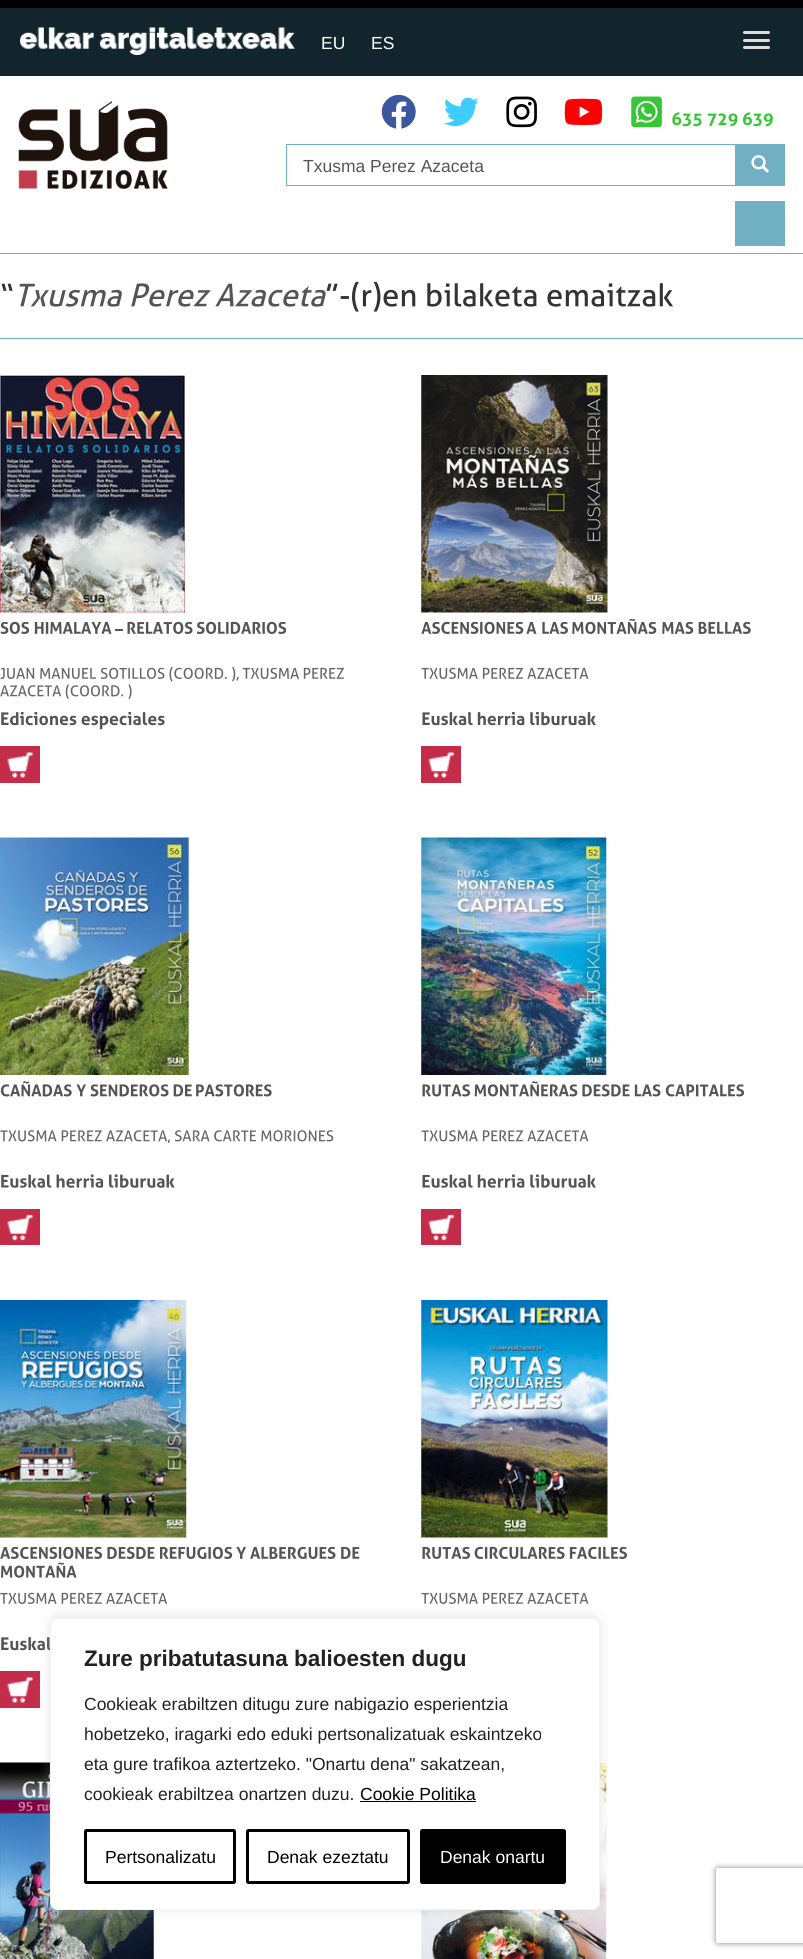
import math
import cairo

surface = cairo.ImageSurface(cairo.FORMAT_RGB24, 803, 1959)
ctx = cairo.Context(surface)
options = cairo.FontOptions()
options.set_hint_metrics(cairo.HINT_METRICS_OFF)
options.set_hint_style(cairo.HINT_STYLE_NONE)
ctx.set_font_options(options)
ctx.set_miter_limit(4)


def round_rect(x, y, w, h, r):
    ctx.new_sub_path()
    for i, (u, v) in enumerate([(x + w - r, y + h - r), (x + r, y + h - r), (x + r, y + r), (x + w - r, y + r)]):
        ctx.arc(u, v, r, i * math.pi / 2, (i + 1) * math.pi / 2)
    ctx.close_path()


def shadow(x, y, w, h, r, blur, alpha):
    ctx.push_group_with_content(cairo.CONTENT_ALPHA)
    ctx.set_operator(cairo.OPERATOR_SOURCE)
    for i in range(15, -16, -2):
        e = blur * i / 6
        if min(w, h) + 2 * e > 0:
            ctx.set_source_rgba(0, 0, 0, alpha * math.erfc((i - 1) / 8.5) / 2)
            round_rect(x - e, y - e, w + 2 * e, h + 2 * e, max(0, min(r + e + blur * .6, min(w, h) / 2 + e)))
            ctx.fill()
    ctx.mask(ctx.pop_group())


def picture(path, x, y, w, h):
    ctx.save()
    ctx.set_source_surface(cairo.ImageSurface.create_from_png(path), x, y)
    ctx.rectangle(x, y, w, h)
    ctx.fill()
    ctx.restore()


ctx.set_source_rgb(1, 1, 1)
ctx.paint()
ctx.set_source_rgb(0.078, 0.145, 0.173)
ctx.rectangle(0, 8, 803, 68)
ctx.fill()
ctx.set_source_rgb(0, 0, 0)
ctx.rectangle(0, 0, 803, 8)
ctx.fill()
picture("img1.png", 20, 27, 275, 28)
ctx.select_font_face("Liberation Sans")
ctx.set_font_size(17.5)
ctx.set_source_rgb(1, 1, 1)
ctx.move_to(321, 49)
ctx.show_text("EU")
ctx.move_to(371, 49)
ctx.show_text("ES")
ctx.set_source_rgb(0.867, 0.867, 0.867)
round_rect(743, 31, 27, 3, 1.5)
ctx.fill()
round_rect(743, 39, 27, 3, 1.5)
ctx.fill()
round_rect(743, 46, 27, 3, 1.5)
ctx.fill()
picture("img2.png", 18, 101, 150, 88)
picture("img3.png", 381, 94, 35, 35)
picture("img4.png", 444, 97, 35, 30)
picture("img5.png", 506, 96, 31, 32)
picture("img6.png", 564, 98, 39, 27)
picture("img7.png", 631, 96, 31, 32)
picture("img8.png", 672, 112, 101, 15)
ctx.rectangle(286.5, 144.5, 449, 41)
ctx.set_source_rgb(0.443, 0.69, 0.765)
ctx.set_line_width(1)
ctx.stroke()
ctx.set_source_rgb(0.333, 0.333, 0.333)
ctx.move_to(303, 172)
ctx.show_text("Txusma Perez Azaceta")
ctx.set_source_rgb(0.443, 0.69, 0.765)
ctx.rectangle(736, 144, 49, 42)
ctx.fill()
picture("img9.png", 751, 155, 18, 18)
ctx.rectangle(735, 201, 50, 45)
ctx.fill()
ctx.rectangle(0, 253, 803, 1)
ctx.fill()
ctx.rectangle(0, 338, 803, 1)
ctx.fill()
picture("img10.png", 1, 283, 12, 8)
picture("img11.png", 19, 283, 307, 24)
picture("img12.png", 326, 281, 347, 31)
picture("img13.png", 0, 375, 185, 238)
picture("img14.png", 0, 621, 30, 13)
picture("img15.png", 34, 622, 78, 12)
ctx.set_source_rgb(0.329, 0.329, 0.329)
ctx.rectangle(115, 629, 8, 2)
ctx.fill()
picture("img16.png", 127, 621, 66, 13)
picture("img17.png", 196, 621, 91, 13)
picture("img18.png", 0, 667, 96, 12)
picture("img19.png", 100, 667, 139, 15)
picture("img20.png", 242, 667, 57, 12)
picture("img21.png", 303, 667, 42, 12)
picture("img22.png", 0, 684, 132, 15)
picture("img23.png", 1, 712, 164, 18)
ctx.set_source_rgb(0.765, 0.176, 0.29)
ctx.rectangle(0, 746, 40, 37)
ctx.fill()
picture("img24.png", 7, 752, 27, 26)
picture("img25.png", 421, 375, 187, 238)
picture("img26.png", 421, 621, 103, 13)
picture("img27.png", 526, 622, 11, 12)
picture("img28.png", 542, 621, 26, 13)
picture("img29.png", 572, 619, 85, 15)
picture("img30.png", 662, 621, 32, 13)
picture("img31.png", 698, 621, 53, 13)
picture("img32.png", 421, 667, 168, 12)
picture("img33.png", 422, 712, 174, 14)
ctx.rectangle(421, 746, 40, 37)
ctx.fill()
picture("img34.png", 428, 752, 27, 26)
picture("img35.png", 0, 837, 189, 238)
picture("img36.png", 0, 1081, 72, 16)
picture("img37.png", 76, 1084, 10, 13)
picture("img38.png", 90, 1084, 79, 13)
picture("img39.png", 173, 1084, 19, 13)
picture("img40.png", 196, 1084, 76, 13)
picture("img41.png", 0, 1130, 334, 13)
picture("img42.png", 1, 1174, 174, 14)
ctx.rectangle(0, 1209, 40, 36)
ctx.fill()
picture("img43.png", 7, 1214, 27, 27)
picture("img44.png", 421, 837, 186, 238)
picture("img45.png", 422, 1084, 48, 13)
picture("img46.png", 474, 1081, 104, 16)
picture("img47.png", 582, 1084, 48, 13)
picture("img48.png", 634, 1084, 27, 13)
picture("img49.png", 665, 1084, 80, 13)
picture("img50.png", 421, 1130, 168, 12)
picture("img51.png", 422, 1174, 174, 14)
ctx.rectangle(421, 1209, 40, 36)
ctx.fill()
picture("img52.png", 428, 1214, 27, 27)
picture("img53.png", 0, 1300, 187, 238)
picture("img54.png", 0, 1546, 102, 13)
picture("img55.png", 107, 1546, 48, 13)
picture("img56.png", 160, 1546, 73, 13)
picture("img57.png", 236, 1547, 10, 12)
picture("img58.png", 250, 1546, 86, 13)
picture("img59.png", 341, 1546, 19, 13)
picture("img60.png", 1, 1562, 76, 16)
picture("img61.png", 0, 1592, 167, 12)
picture("img62.png", 1, 1637, 49, 14)
ctx.rectangle(0, 1671, 40, 37)
ctx.fill()
picture("img24.png", 7, 1677, 27, 26)
picture("img63.png", 421, 1300, 187, 238)
picture("img64.png", 422, 1546, 48, 13)
picture("img65.png", 474, 1546, 91, 13)
picture("img66.png", 569, 1546, 58, 13)
picture("img32.png", 421, 1592, 168, 12)
picture("img67.png", 0, 1762, 154, 197)
picture("img68.png", 421, 1762, 186, 197)
ctx.set_source_rgb(0.675, 0.671, 0.671)
shadow(50, 1616, 550, 293, 8, 6, 0.3)
ctx.set_source_rgb(1, 1, 1)
round_rect(50.5, 1618.5, 549, 291, 7.5)
ctx.fill_preserve()
ctx.set_source_rgb(0.957, 0.957, 0.957)
ctx.stroke()
ctx.select_font_face("Liberation Sans", cairo.FONT_SLANT_NORMAL, cairo.FONT_WEIGHT_BOLD)
ctx.set_font_size(22.5)
ctx.set_source_rgb(0.129, 0.129, 0.129)
ctx.move_to(84, 1666)
ctx.show_text("Zure pribatutasuna balioesten dugu")
ctx.select_font_face("Liberation Sans")
ctx.set_font_size(17.5)
ctx.move_to(84, 1710)
ctx.show_text("Cookieak erabiltzen ditugu zure nabigazio esperientzia")
ctx.move_to(84, 1740)
ctx.show_text("hobetzeko, iragarki edo eduki pertsonalizatuak eskaintzeko")
ctx.move_to(84, 1770)
ctx.show_text("eta gure trafikoa aztertzeko. \"Onartu dena\" sakatzean,")
ctx.move_to(84, 1800)
ctx.show_text("cookieak erabiltzea onartzen duzu.")
ctx.set_source_rgb(0, 0, 0)
ctx.move_to(360, 1800)
ctx.show_text("Cookie Politika")
ctx.rectangle(360, 1801, 116, 1)
ctx.fill()
round_rect(85.5, 1830.5, 149, 52, 1)
ctx.set_line_width(3)
ctx.stroke()
ctx.move_to(105, 1863)
ctx.show_text("Pertsonalizatu")
round_rect(247.5, 1830.5, 161, 52, 1)
ctx.stroke()
ctx.move_to(267, 1863)
ctx.show_text("Denak ezeztatu")
round_rect(421.5, 1830.5, 143, 52, 1)
ctx.fill_preserve()
ctx.stroke()
ctx.set_source_rgb(1, 1, 1)
ctx.move_to(440, 1863)
ctx.show_text("Denak onartu")
ctx.save()
ctx.set_fill_rule(cairo.FILL_RULE_EVEN_ODD)
ctx.new_path()
ctx.move_to(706, 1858)
ctx.line_to(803, 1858)
ctx.line_to(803, 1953)
ctx.line_to(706, 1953)
ctx.close_path()
ctx.move_to(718.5, 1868)
ctx.line_to(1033.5, 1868)
ctx.curve_to(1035, 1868, 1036, 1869, 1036, 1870.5)
ctx.line_to(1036, 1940.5)
ctx.curve_to(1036, 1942, 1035, 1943, 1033.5, 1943)
ctx.line_to(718.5, 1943)
ctx.curve_to(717, 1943, 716, 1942, 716, 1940.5)
ctx.line_to(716, 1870.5)
ctx.curve_to(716, 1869, 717, 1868, 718.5, 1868)
ctx.close_path()
ctx.clip()
ctx.set_source_rgb(0.502, 0.502, 0.502)
shadow(716, 1868, 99, 75, 2.5, 3, 1)
ctx.restore()
surface.write_to_png("page.png")
